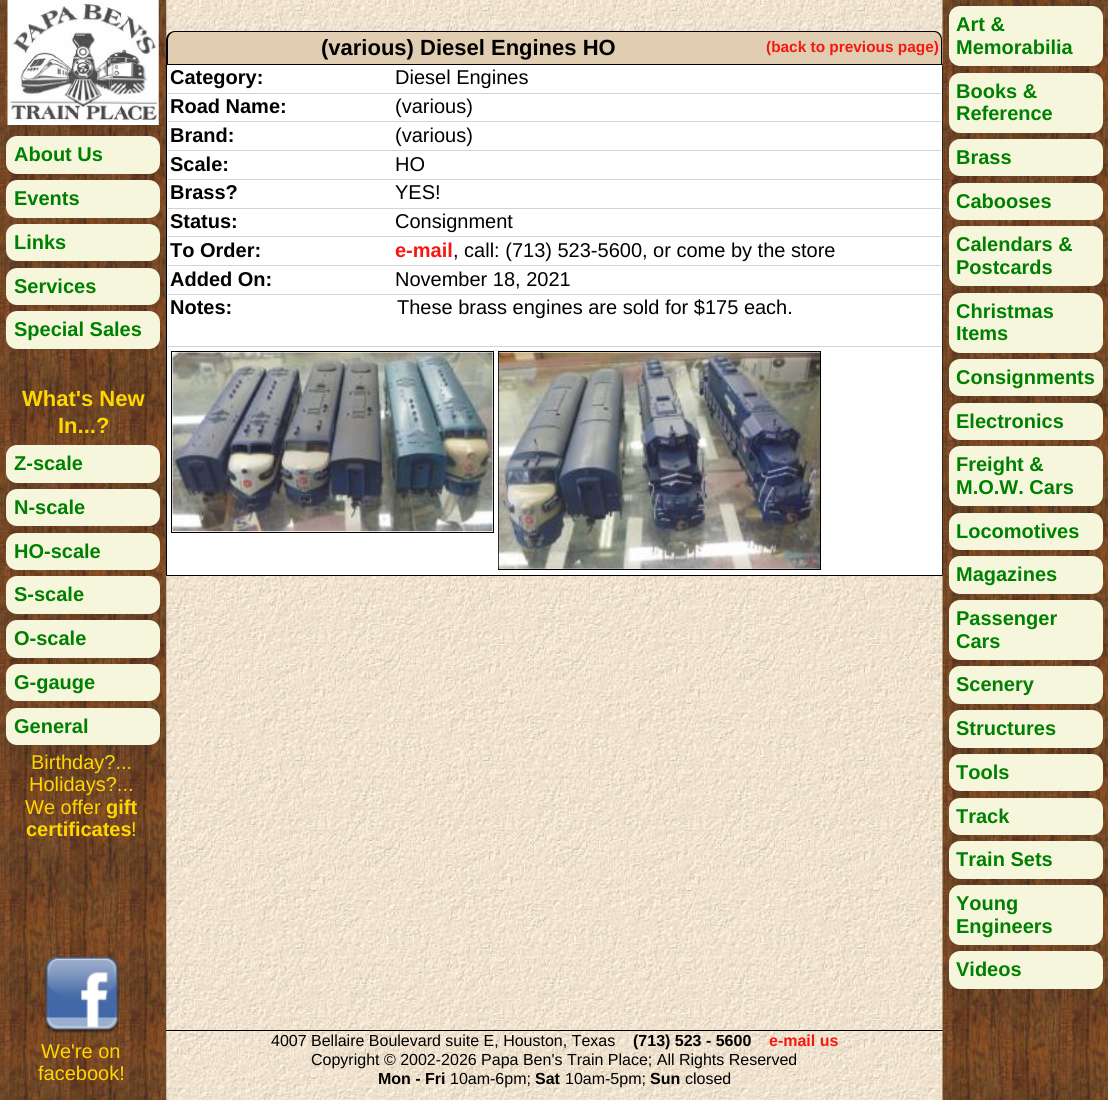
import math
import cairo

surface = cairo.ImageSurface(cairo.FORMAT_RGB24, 1108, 1100)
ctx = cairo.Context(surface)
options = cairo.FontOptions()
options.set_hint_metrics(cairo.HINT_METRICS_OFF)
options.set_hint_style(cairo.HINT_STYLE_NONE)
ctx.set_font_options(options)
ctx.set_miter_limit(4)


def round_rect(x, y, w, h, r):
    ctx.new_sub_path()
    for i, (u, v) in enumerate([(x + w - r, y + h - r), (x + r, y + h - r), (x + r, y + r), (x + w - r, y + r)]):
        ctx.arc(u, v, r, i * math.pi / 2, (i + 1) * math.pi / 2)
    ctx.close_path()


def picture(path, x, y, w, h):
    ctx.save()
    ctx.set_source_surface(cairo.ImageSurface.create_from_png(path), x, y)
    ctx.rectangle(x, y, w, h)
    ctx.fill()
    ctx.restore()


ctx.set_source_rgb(1, 1, 1)
ctx.paint()
picture("img1.png", 166, 0, 777, 1100)
picture("img2.png", 0, 0, 167, 1100)
picture("img3.png", 7, 0, 152, 125)
ctx.set_source_rgb(0.961, 0.961, 0.863)
round_rect(6, 136, 154, 38, 11)
ctx.fill()
ctx.select_font_face("Liberation Sans", cairo.FONT_SLANT_NORMAL, cairo.FONT_WEIGHT_BOLD)
ctx.set_font_size(20)
ctx.set_source_rgb(0, 0.502, 0)
ctx.move_to(14, 161)
ctx.show_text("About Us")
ctx.set_source_rgb(0.961, 0.961, 0.863)
round_rect(6, 180, 154, 38, 11)
ctx.fill()
ctx.set_source_rgb(0, 0.502, 0)
ctx.move_to(14, 205)
ctx.show_text("Events")
ctx.set_source_rgb(0.961, 0.961, 0.863)
round_rect(6, 224, 154, 37, 11)
ctx.fill()
ctx.set_source_rgb(0, 0.502, 0)
ctx.move_to(14, 249)
ctx.show_text("Links")
ctx.set_source_rgb(0.961, 0.961, 0.863)
round_rect(6, 268, 154, 37, 11)
ctx.fill()
ctx.set_source_rgb(0, 0.502, 0)
ctx.move_to(14, 293)
ctx.show_text("Services")
ctx.set_source_rgb(0.961, 0.961, 0.863)
round_rect(6, 311, 154, 38, 11)
ctx.fill()
ctx.set_source_rgb(0, 0.502, 0)
ctx.move_to(14, 336)
ctx.show_text("Special Sales")
ctx.set_font_size(22)
ctx.set_source_rgb(1, 0.843, 0)
ctx.move_to(22, 406)
ctx.show_text("What's New")
ctx.move_to(58, 433)
ctx.show_text("In...?")
ctx.set_source_rgb(0.961, 0.961, 0.863)
round_rect(6, 445, 154, 38, 11)
ctx.fill()
ctx.set_font_size(20)
ctx.set_source_rgb(0, 0.502, 0)
ctx.move_to(14, 470)
ctx.show_text("Z-scale")
ctx.set_source_rgb(0.961, 0.961, 0.863)
round_rect(6, 489, 154, 37, 11)
ctx.fill()
ctx.set_source_rgb(0, 0.502, 0)
ctx.move_to(14, 514)
ctx.show_text("N-scale")
ctx.set_source_rgb(0.961, 0.961, 0.863)
round_rect(6, 533, 154, 37, 11)
ctx.fill()
ctx.set_source_rgb(0, 0.502, 0)
ctx.move_to(14, 558)
ctx.show_text("HO-scale")
ctx.set_source_rgb(0.961, 0.961, 0.863)
round_rect(6, 576, 154, 38, 11)
ctx.fill()
ctx.set_source_rgb(0, 0.502, 0)
ctx.move_to(14, 601)
ctx.show_text("S-scale")
ctx.set_source_rgb(0.961, 0.961, 0.863)
round_rect(6, 620, 154, 38, 11)
ctx.fill()
ctx.set_source_rgb(0, 0.502, 0)
ctx.move_to(14, 645)
ctx.show_text("O-scale")
ctx.set_source_rgb(0.961, 0.961, 0.863)
round_rect(6, 664, 154, 37, 11)
ctx.fill()
ctx.set_source_rgb(0, 0.502, 0)
ctx.move_to(14, 689)
ctx.show_text("G-gauge")
ctx.set_source_rgb(0.961, 0.961, 0.863)
round_rect(6, 708, 154, 37, 11)
ctx.fill()
ctx.set_source_rgb(0, 0.502, 0)
ctx.move_to(14, 733)
ctx.show_text("General")
ctx.select_font_face("Liberation Sans")
ctx.set_source_rgb(1, 0.843, 0)
ctx.move_to(31, 769)
ctx.show_text("Birthday?...")
ctx.move_to(29, 791)
ctx.show_text("Holidays?...")
ctx.move_to(25, 814)
ctx.show_text("We offer")
ctx.select_font_face("Liberation Sans", cairo.FONT_SLANT_NORMAL, cairo.FONT_WEIGHT_BOLD)
ctx.move_to(106, 814)
ctx.show_text("gift")
ctx.move_to(26, 836)
ctx.show_text("certificates")
ctx.select_font_face("Liberation Sans")
ctx.move_to(131, 836)
ctx.show_text("!")
picture("img4.png", 44, 957, 75, 76)
ctx.move_to(41, 1058)
ctx.show_text("We're on")
ctx.move_to(38, 1080)
ctx.show_text("facebook!")
ctx.set_source_rgb(0.882, 0.804, 0.694)
ctx.new_path()
ctx.move_to(175, 31)
ctx.line_to(934, 31)
ctx.curve_to(939, 31, 943, 35, 943, 40)
ctx.line_to(943, 64)
ctx.line_to(166, 64)
ctx.line_to(166, 40)
ctx.curve_to(166, 35, 170, 31, 175, 31)
ctx.close_path()
ctx.fill()
ctx.set_source_rgb(0, 0, 0)
ctx.set_fill_rule(cairo.FILL_RULE_EVEN_ODD)
ctx.new_path()
ctx.move_to(175, 31)
ctx.line_to(934, 31)
ctx.curve_to(939, 31, 942, 35, 942, 40)
ctx.line_to(942, 64)
ctx.line_to(166, 64)
ctx.line_to(166, 40)
ctx.curve_to(166, 35, 170, 31, 175, 31)
ctx.close_path()
ctx.move_to(175, 32)
ctx.line_to(934, 32)
ctx.curve_to(938, 32, 941, 36, 941, 40)
ctx.line_to(941, 64)
ctx.line_to(168, 64)
ctx.line_to(168, 40)
ctx.curve_to(168, 36, 171, 32, 175, 32)
ctx.close_path()
ctx.fill()
ctx.select_font_face("Liberation Sans", cairo.FONT_SLANT_NORMAL, cairo.FONT_WEIGHT_BOLD)
ctx.set_font_size(22)
ctx.move_to(321, 55)
ctx.show_text("(various) Diesel Engines HO")
ctx.set_font_size(15.4)
ctx.set_source_rgb(0.961, 0.09, 0.055)
ctx.move_to(766, 52)
ctx.show_text("(back to previous page)")
ctx.set_source_rgb(1, 1, 1)
ctx.rectangle(166.5, 64.5, 776, 511)
ctx.fill_preserve()
ctx.set_source_rgb(0, 0, 0)
ctx.set_line_width(1)
ctx.stroke()
ctx.set_source_rgb(0.827, 0.827, 0.827)
ctx.rectangle(168, 93, 773, 1)
ctx.fill()
ctx.set_font_size(20)
ctx.set_source_rgb(0, 0, 0)
ctx.move_to(170, 84)
ctx.show_text("Category:")
ctx.select_font_face("Liberation Sans")
ctx.move_to(395, 84)
ctx.show_text("Diesel Engines")
ctx.set_source_rgb(0.827, 0.827, 0.827)
ctx.rectangle(168, 121, 773, 1)
ctx.fill()
ctx.select_font_face("Liberation Sans", cairo.FONT_SLANT_NORMAL, cairo.FONT_WEIGHT_BOLD)
ctx.set_source_rgb(0, 0, 0)
ctx.move_to(170, 113)
ctx.show_text("Road Name:")
ctx.select_font_face("Liberation Sans")
ctx.move_to(395, 113)
ctx.show_text("(various)")
ctx.set_source_rgb(0.827, 0.827, 0.827)
ctx.rectangle(168, 150, 773, 1)
ctx.fill()
ctx.select_font_face("Liberation Sans", cairo.FONT_SLANT_NORMAL, cairo.FONT_WEIGHT_BOLD)
ctx.set_source_rgb(0, 0, 0)
ctx.move_to(170, 142)
ctx.show_text("Brand:")
ctx.select_font_face("Liberation Sans")
ctx.move_to(395, 142)
ctx.show_text("(various)")
ctx.set_source_rgb(0.827, 0.827, 0.827)
ctx.rectangle(168, 179, 773, 1)
ctx.fill()
ctx.select_font_face("Liberation Sans", cairo.FONT_SLANT_NORMAL, cairo.FONT_WEIGHT_BOLD)
ctx.set_source_rgb(0, 0, 0)
ctx.move_to(170, 171)
ctx.show_text("Scale:")
ctx.select_font_face("Liberation Sans")
ctx.move_to(395, 171)
ctx.show_text("HO")
ctx.set_source_rgb(0.827, 0.827, 0.827)
ctx.rectangle(168, 208, 773, 1)
ctx.fill()
ctx.select_font_face("Liberation Sans", cairo.FONT_SLANT_NORMAL, cairo.FONT_WEIGHT_BOLD)
ctx.set_source_rgb(0, 0, 0)
ctx.move_to(170, 199)
ctx.show_text("Brass?")
ctx.select_font_face("Liberation Sans")
ctx.move_to(395, 199)
ctx.show_text("YES!")
ctx.set_source_rgb(0.827, 0.827, 0.827)
ctx.rectangle(168, 236, 773, 1)
ctx.fill()
ctx.select_font_face("Liberation Sans", cairo.FONT_SLANT_NORMAL, cairo.FONT_WEIGHT_BOLD)
ctx.set_source_rgb(0, 0, 0)
ctx.move_to(170, 228)
ctx.show_text("Status:")
ctx.select_font_face("Liberation Sans")
ctx.move_to(395, 228)
ctx.show_text("Consignment")
ctx.set_source_rgb(0.827, 0.827, 0.827)
ctx.rectangle(168, 265, 773, 1)
ctx.fill()
ctx.select_font_face("Liberation Sans", cairo.FONT_SLANT_NORMAL, cairo.FONT_WEIGHT_BOLD)
ctx.set_source_rgb(0, 0, 0)
ctx.move_to(170, 257)
ctx.show_text("To Order:")
ctx.set_source_rgb(0.961, 0.09, 0.055)
ctx.move_to(395, 257)
ctx.show_text("e-mail")
ctx.select_font_face("Liberation Sans")
ctx.set_source_rgb(0, 0, 0)
ctx.move_to(453, 257)
ctx.show_text(", call: (713) 523-5600, or come by the store")
ctx.set_source_rgb(0.827, 0.827, 0.827)
ctx.rectangle(168, 294, 773, 1)
ctx.fill()
ctx.select_font_face("Liberation Sans", cairo.FONT_SLANT_NORMAL, cairo.FONT_WEIGHT_BOLD)
ctx.set_source_rgb(0, 0, 0)
ctx.move_to(170, 286)
ctx.show_text("Added On:")
ctx.select_font_face("Liberation Sans")
ctx.move_to(395, 286)
ctx.show_text("November 18, 2021")
ctx.set_source_rgb(0.827, 0.827, 0.827)
ctx.rectangle(168, 346, 773, 1)
ctx.fill()
ctx.select_font_face("Liberation Sans", cairo.FONT_SLANT_NORMAL, cairo.FONT_WEIGHT_BOLD)
ctx.set_source_rgb(0, 0, 0)
ctx.move_to(170, 314)
ctx.show_text("Notes:")
ctx.select_font_face("Liberation Sans")
ctx.move_to(397, 314)
ctx.show_text("These brass engines are sold for $175 each.")
ctx.rectangle(171.5, 351.5, 322, 181)
ctx.stroke()
picture("img5.png", 172, 352, 321, 180)
ctx.rectangle(498.5, 351.5, 322, 218)
ctx.stroke()
picture("img6.png", 498, 352, 322, 217)
ctx.rectangle(166, 1030, 777, 1)
ctx.fill()
ctx.set_font_size(16)
ctx.move_to(271, 1046)
ctx.show_text("4007 Bellaire Boulevard suite E, Houston, Texas")
ctx.select_font_face("Liberation Sans", cairo.FONT_SLANT_NORMAL, cairo.FONT_WEIGHT_BOLD)
ctx.move_to(633, 1046)
ctx.show_text("(713) 523 - 5600")
ctx.set_source_rgb(0.961, 0.09, 0.055)
ctx.move_to(769, 1046)
ctx.show_text("e-mail us")
ctx.select_font_face("Liberation Sans")
ctx.set_source_rgb(0, 0, 0)
ctx.move_to(311, 1065)
ctx.show_text("Copyright © 2002-2026 Papa Ben's Train Place; All Rights Reserved")
ctx.select_font_face("Liberation Sans", cairo.FONT_SLANT_NORMAL, cairo.FONT_WEIGHT_BOLD)
ctx.move_to(378, 1084)
ctx.show_text("Mon - Fri")
ctx.select_font_face("Liberation Sans")
ctx.move_to(450, 1084)
ctx.show_text("10am-6pm;")
ctx.select_font_face("Liberation Sans", cairo.FONT_SLANT_NORMAL, cairo.FONT_WEIGHT_BOLD)
ctx.move_to(535, 1084)
ctx.show_text("Sat")
ctx.select_font_face("Liberation Sans")
ctx.move_to(565, 1084)
ctx.show_text("10am-5pm;")
ctx.select_font_face("Liberation Sans", cairo.FONT_SLANT_NORMAL, cairo.FONT_WEIGHT_BOLD)
ctx.move_to(650, 1084)
ctx.show_text("Sun")
ctx.select_font_face("Liberation Sans")
ctx.move_to(685, 1084)
ctx.show_text("closed")
picture("img7.png", 942, 0, 166, 1100)
ctx.set_source_rgb(0.961, 0.961, 0.863)
round_rect(949, 6, 154, 60, 11)
ctx.fill()
ctx.select_font_face("Liberation Sans", cairo.FONT_SLANT_NORMAL, cairo.FONT_WEIGHT_BOLD)
ctx.set_font_size(20)
ctx.set_source_rgb(0, 0.502, 0)
ctx.move_to(956, 31)
ctx.show_text("Art &")
ctx.move_to(956, 54)
ctx.show_text("Memorabilia")
ctx.set_source_rgb(0.961, 0.961, 0.863)
round_rect(949, 73, 154, 60, 11)
ctx.fill()
ctx.set_source_rgb(0, 0.502, 0)
ctx.move_to(956, 98)
ctx.show_text("Books &")
ctx.move_to(956, 120)
ctx.show_text("Reference")
ctx.set_source_rgb(0.961, 0.961, 0.863)
round_rect(949, 139, 154, 37, 11)
ctx.fill()
ctx.set_source_rgb(0, 0.502, 0)
ctx.move_to(956, 164)
ctx.show_text("Brass")
ctx.set_source_rgb(0.961, 0.961, 0.863)
round_rect(949, 183, 154, 37, 11)
ctx.fill()
ctx.set_source_rgb(0, 0.502, 0)
ctx.move_to(956, 208)
ctx.show_text("Cabooses")
ctx.set_source_rgb(0.961, 0.961, 0.863)
round_rect(949, 226, 154, 60, 11)
ctx.fill()
ctx.set_source_rgb(0, 0.502, 0)
ctx.move_to(956, 251)
ctx.show_text("Calendars &")
ctx.move_to(956, 274)
ctx.show_text("Postcards")
ctx.set_source_rgb(0.961, 0.961, 0.863)
round_rect(949, 293, 154, 60, 11)
ctx.fill()
ctx.set_source_rgb(0, 0.502, 0)
ctx.move_to(956, 318)
ctx.show_text("Christmas")
ctx.move_to(956, 340)
ctx.show_text("Items")
ctx.set_source_rgb(0.961, 0.961, 0.863)
round_rect(949, 359, 154, 37, 11)
ctx.fill()
ctx.set_source_rgb(0, 0.502, 0)
ctx.move_to(956, 384)
ctx.show_text("Consignments")
ctx.set_source_rgb(0.961, 0.961, 0.863)
round_rect(949, 403, 154, 37, 11)
ctx.fill()
ctx.set_source_rgb(0, 0.502, 0)
ctx.move_to(956, 428)
ctx.show_text("Electronics")
ctx.set_source_rgb(0.961, 0.961, 0.863)
round_rect(949, 446, 154, 60, 11)
ctx.fill()
ctx.set_source_rgb(0, 0.502, 0)
ctx.move_to(956, 471)
ctx.show_text("Freight &")
ctx.move_to(956, 494)
ctx.show_text("M.O.W. Cars")
ctx.set_source_rgb(0.961, 0.961, 0.863)
round_rect(949, 513, 154, 37, 11)
ctx.fill()
ctx.set_source_rgb(0, 0.502, 0)
ctx.move_to(956, 538)
ctx.show_text("Locomotives")
ctx.set_source_rgb(0.961, 0.961, 0.863)
round_rect(949, 556, 154, 38, 11)
ctx.fill()
ctx.set_source_rgb(0, 0.502, 0)
ctx.move_to(956, 581)
ctx.show_text("Magazines")
ctx.set_source_rgb(0.961, 0.961, 0.863)
round_rect(949, 600, 154, 60, 11)
ctx.fill()
ctx.set_source_rgb(0, 0.502, 0)
ctx.move_to(956, 625)
ctx.show_text("Passenger")
ctx.move_to(956, 648)
ctx.show_text("Cars")
ctx.set_source_rgb(0.961, 0.961, 0.863)
round_rect(949, 666, 154, 38, 11)
ctx.fill()
ctx.set_source_rgb(0, 0.502, 0)
ctx.move_to(956, 691)
ctx.show_text("Scenery")
ctx.set_source_rgb(0.961, 0.961, 0.863)
round_rect(949, 710, 154, 38, 11)
ctx.fill()
ctx.set_source_rgb(0, 0.502, 0)
ctx.move_to(956, 735)
ctx.show_text("Structures")
ctx.set_source_rgb(0.961, 0.961, 0.863)
round_rect(949, 754, 154, 37, 11)
ctx.fill()
ctx.set_source_rgb(0, 0.502, 0)
ctx.move_to(956, 779)
ctx.show_text("Tools")
ctx.set_source_rgb(0.961, 0.961, 0.863)
round_rect(949, 798, 154, 37, 11)
ctx.fill()
ctx.set_source_rgb(0, 0.502, 0)
ctx.move_to(956, 823)
ctx.show_text("Track")
ctx.set_source_rgb(0.961, 0.961, 0.863)
round_rect(949, 841, 154, 38, 11)
ctx.fill()
ctx.set_source_rgb(0, 0.502, 0)
ctx.move_to(956, 866)
ctx.show_text("Train Sets")
ctx.set_source_rgb(0.961, 0.961, 0.863)
round_rect(949, 885, 154, 60, 11)
ctx.fill()
ctx.set_source_rgb(0, 0.502, 0)
ctx.move_to(956, 910)
ctx.show_text("Young")
ctx.move_to(956, 933)
ctx.show_text("Engineers")
ctx.set_source_rgb(0.961, 0.961, 0.863)
round_rect(949, 951, 154, 38, 11)
ctx.fill()
ctx.set_source_rgb(0, 0.502, 0)
ctx.move_to(956, 976)
ctx.show_text("Videos")
surface.write_to_png("page.png")
